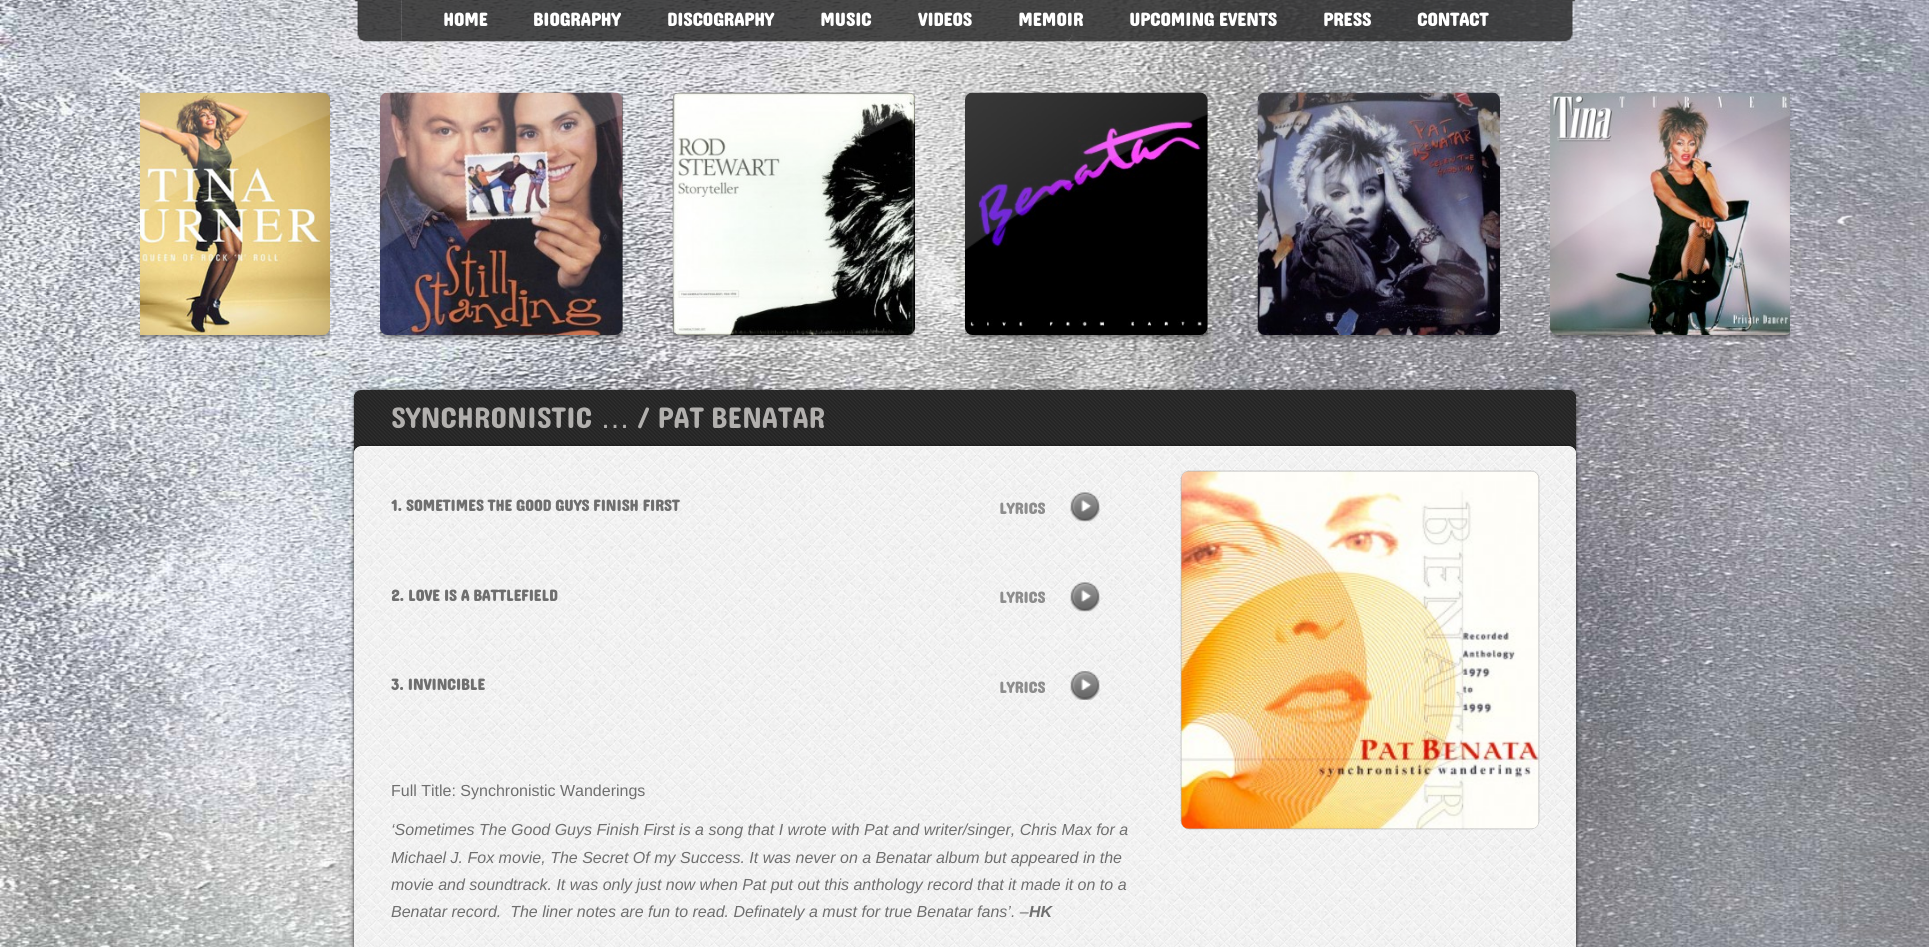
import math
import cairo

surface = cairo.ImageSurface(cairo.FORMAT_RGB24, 1929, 947)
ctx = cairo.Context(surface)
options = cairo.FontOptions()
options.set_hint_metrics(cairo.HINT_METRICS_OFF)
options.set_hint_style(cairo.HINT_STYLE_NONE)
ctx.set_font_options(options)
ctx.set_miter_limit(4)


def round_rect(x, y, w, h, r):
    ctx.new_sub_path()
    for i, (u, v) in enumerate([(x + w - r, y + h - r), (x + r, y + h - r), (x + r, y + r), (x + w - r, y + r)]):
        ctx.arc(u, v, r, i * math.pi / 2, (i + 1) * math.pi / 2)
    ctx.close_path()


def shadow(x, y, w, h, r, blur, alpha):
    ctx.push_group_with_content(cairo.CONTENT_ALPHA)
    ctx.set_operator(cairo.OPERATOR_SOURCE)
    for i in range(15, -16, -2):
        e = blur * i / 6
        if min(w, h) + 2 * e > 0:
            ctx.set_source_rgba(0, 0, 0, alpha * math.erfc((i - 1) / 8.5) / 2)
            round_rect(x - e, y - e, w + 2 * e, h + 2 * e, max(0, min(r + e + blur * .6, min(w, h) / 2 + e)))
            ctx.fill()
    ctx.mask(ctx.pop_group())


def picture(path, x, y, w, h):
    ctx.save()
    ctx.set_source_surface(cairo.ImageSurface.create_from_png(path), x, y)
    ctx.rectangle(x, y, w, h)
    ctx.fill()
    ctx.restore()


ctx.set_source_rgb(1, 1, 1)
ctx.paint()
picture("img1.png", 0, 0, 1929, 947)
picture("img2.png", 355, 0, 47, 42)
picture("img3.png", 401, 0, 1175, 42)
ctx.select_font_face("Dangrek", cairo.FONT_SLANT_NORMAL, cairo.FONT_WEIGHT_BOLD)
ctx.set_font_size(18.75)
ctx.set_source_rgb(1, 1, 1)
ctx.move_to(443, 26)
ctx.show_text("HOME")
ctx.move_to(533, 26)
ctx.show_text("BIOGRAPHY")
ctx.move_to(667, 26)
ctx.show_text("DISCOGRAPHY")
ctx.move_to(820, 26)
ctx.show_text("MUSIC")
ctx.move_to(918, 26)
ctx.show_text("VIDEOS")
ctx.move_to(1018, 26)
ctx.show_text("MEMOIR")
ctx.move_to(1129, 26)
ctx.show_text("UPCOMING EVENTS")
ctx.move_to(1323, 26)
ctx.show_text("PRESS")
ctx.move_to(1417, 26)
ctx.show_text("CONTACT")
ctx.save()
ctx.rectangle(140, 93, 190, 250)
ctx.clip()
ctx.set_source_rgb(0, 0, 0)
shadow(88, 93, 242, 242, 8, 4, 0.8)
ctx.restore()
picture("img4.png", 140, 92, 190, 243)
picture("img5.png", 140, 92, 190, 118)
ctx.save()
ctx.rectangle(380, 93, 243, 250)
ctx.clip()
ctx.set_source_rgb(0, 0, 0)
shadow(380, 93, 243, 242, 8, 4, 0.8)
ctx.restore()
picture("img6.png", 380, 92, 243, 243)
picture("img7.png", 380, 92, 243, 158)
ctx.save()
ctx.rectangle(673, 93, 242, 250)
ctx.clip()
ctx.set_source_rgb(0, 0, 0)
shadow(673, 93, 242, 242, 8, 4, 0.8)
ctx.restore()
picture("img8.png", 672, 92, 243, 243)
picture("img9.png", 672, 92, 243, 158)
ctx.save()
ctx.rectangle(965, 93, 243, 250)
ctx.clip()
ctx.set_source_rgb(0, 0, 0)
shadow(965, 93, 243, 242, 8, 4, 0.8)
ctx.restore()
picture("img10.png", 965, 92, 243, 243)
picture("img11.png", 965, 92, 243, 158)
ctx.save()
ctx.rectangle(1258, 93, 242, 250)
ctx.clip()
ctx.set_source_rgb(0, 0, 0)
shadow(1258, 93, 242, 242, 8, 4, 0.8)
ctx.restore()
picture("img12.png", 1257, 92, 243, 243)
picture("img13.png", 1257, 92, 243, 158)
ctx.save()
ctx.rectangle(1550, 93, 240, 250)
ctx.clip()
ctx.set_source_rgb(0, 0, 0)
shadow(1550, 93, 243, 242, 8, 4, 0.8)
ctx.restore()
picture("img14.png", 1550, 92, 240, 243)
picture("img15.png", 1550, 92, 240, 158)
ctx.set_source_rgb(0, 0, 0)
shadow(354, 390, 1222, 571, 8, 2, 0.5)
picture("img16.png", 353, 390, 1224, 557)
ctx.select_font_face("Dangrek")
ctx.set_font_size(30)
ctx.set_source_rgb(0.698, 0.69, 0.682)
ctx.move_to(391, 428)
ctx.show_text("SYNCHRONISTIC")
ctx.select_font_face("Liberation Sans")
ctx.move_to(600, 428)
ctx.show_text("…")
ctx.select_font_face("Dangrek")
ctx.move_to(637, 428)
ctx.show_text("/ PAT BENATAR")
ctx.set_source_rgb(0, 0, 0)
shadow(354, 446, 1222, 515, 8, 2, 0.5)
ctx.set_source_rgb(1, 1, 1)
round_rect(354, 446, 1222, 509, 8)
ctx.fill()
picture("img17.png", 353, 446, 1224, 501)
ctx.select_font_face("Dangrek", cairo.FONT_SLANT_NORMAL, cairo.FONT_WEIGHT_BOLD)
ctx.set_font_size(16)
ctx.set_source_rgb(0.435, 0.435, 0.435)
ctx.move_to(391, 511)
ctx.show_text("1. SOMETIMES THE GOOD GUYS FINISH FIRST")
ctx.set_source_rgb(0.553, 0.553, 0.553)
ctx.move_to(999, 514)
ctx.show_text("LYRICS")
picture("img18.png", 1070, 492, 30, 30)
ctx.set_source_rgb(0.435, 0.435, 0.435)
ctx.move_to(391, 601)
ctx.show_text("2. LOVE IS A BATTLEFIELD")
ctx.set_source_rgb(0.553, 0.553, 0.553)
ctx.move_to(999, 603)
ctx.show_text("LYRICS")
picture("img19.png", 1070, 582, 30, 30)
ctx.set_source_rgb(0.435, 0.435, 0.435)
ctx.move_to(391, 690)
ctx.show_text("3. INVINCIBLE")
ctx.set_source_rgb(0.553, 0.553, 0.553)
ctx.move_to(999, 693)
ctx.show_text("LYRICS")
picture("img20.png", 1070, 671, 30, 29)
ctx.select_font_face("Liberation Sans")
ctx.set_source_rgb(0.435, 0.435, 0.435)
ctx.move_to(391, 796)
ctx.show_text("Full Title: Synchronistic Wanderings")
ctx.select_font_face("Liberation Sans", cairo.FONT_SLANT_ITALIC)
ctx.move_to(391, 835)
ctx.show_text("‘Sometimes The Good Guys Finish First is a song that I wrote with Pat and writer/singer, Chris Max for a")
ctx.move_to(391, 863)
ctx.show_text("Michael J. Fox movie, The Secret Of my Success. It was never on a Benatar album but appeared in the")
ctx.move_to(391, 890)
ctx.show_text("movie and soundtrack. It was only just now when Pat put out this anthology record that it made it on to a")
ctx.move_to(391, 917)
ctx.show_text("Benatar record.  The liner notes are fun to read. Definately a must for true Benatar fans’. –")
ctx.select_font_face("Liberation Sans", cairo.FONT_SLANT_ITALIC, cairo.FONT_WEIGHT_BOLD)
ctx.move_to(1029, 917)
ctx.show_text("HK")
ctx.set_source_rgb(0, 0, 0)
shadow(1181, 471, 358, 358, 8, 0.5, 0.3)
picture("img21.png", 1181, 471, 358, 358)
ctx.save()
ctx.set_fill_rule(cairo.FILL_RULE_EVEN_ODD)
ctx.new_path()
ctx.move_to(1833, 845)
ctx.line_to(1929, 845)
ctx.line_to(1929, 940)
ctx.line_to(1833, 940)
ctx.close_path()
ctx.move_to(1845.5, 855)
ctx.line_to(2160.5, 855)
ctx.curve_to(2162, 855, 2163, 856, 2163, 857.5)
ctx.line_to(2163, 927.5)
ctx.curve_to(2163, 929, 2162, 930, 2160.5, 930)
ctx.line_to(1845.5, 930)
ctx.curve_to(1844, 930, 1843, 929, 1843, 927.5)
ctx.line_to(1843, 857.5)
ctx.curve_to(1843, 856, 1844, 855, 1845.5, 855)
ctx.close_path()
ctx.clip()
ctx.set_source_rgb(0.502, 0.502, 0.502)
shadow(1843, 855, 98, 75, 2.5, 3, 1)
ctx.restore()
surface.write_to_png("page.png")
